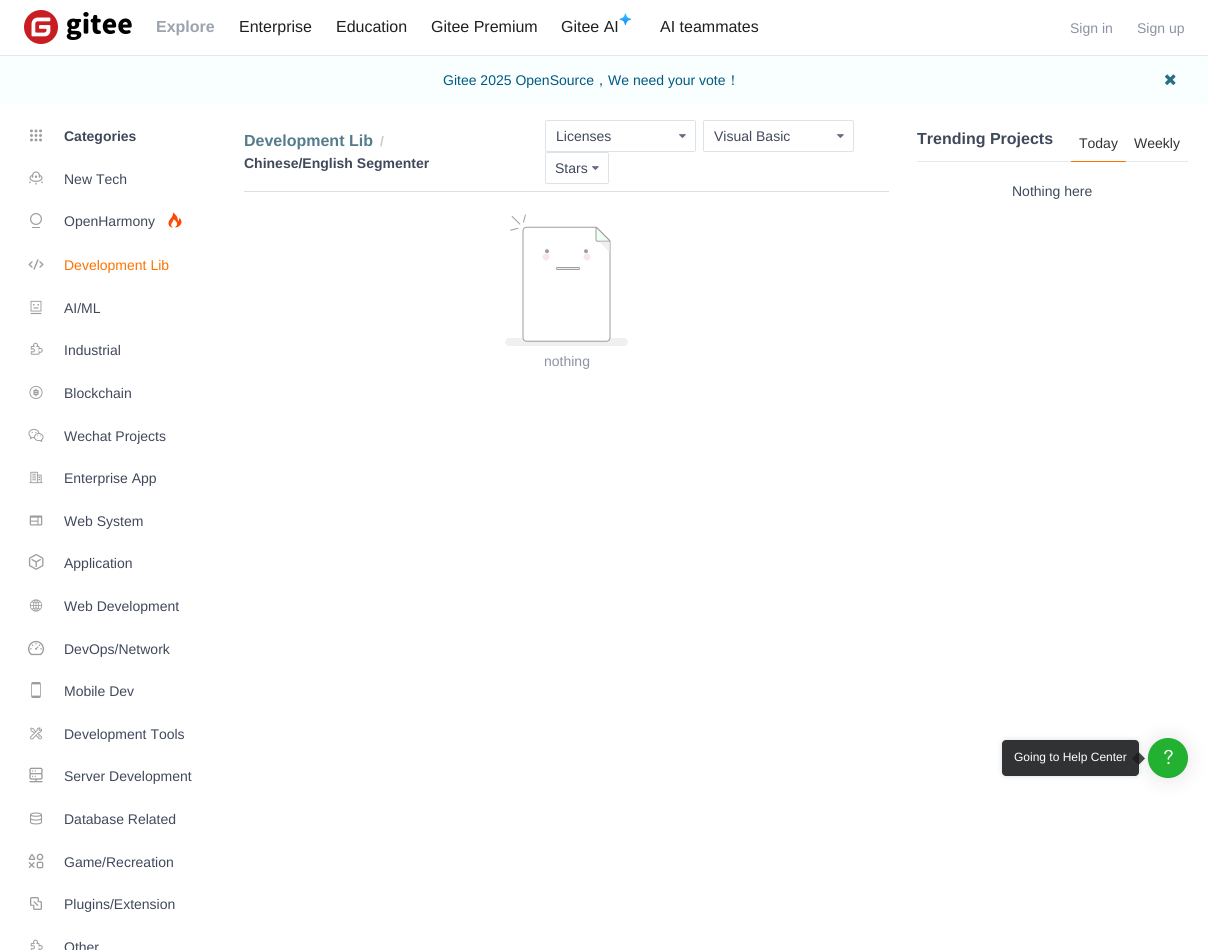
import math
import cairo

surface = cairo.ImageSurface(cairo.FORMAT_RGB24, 1208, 950)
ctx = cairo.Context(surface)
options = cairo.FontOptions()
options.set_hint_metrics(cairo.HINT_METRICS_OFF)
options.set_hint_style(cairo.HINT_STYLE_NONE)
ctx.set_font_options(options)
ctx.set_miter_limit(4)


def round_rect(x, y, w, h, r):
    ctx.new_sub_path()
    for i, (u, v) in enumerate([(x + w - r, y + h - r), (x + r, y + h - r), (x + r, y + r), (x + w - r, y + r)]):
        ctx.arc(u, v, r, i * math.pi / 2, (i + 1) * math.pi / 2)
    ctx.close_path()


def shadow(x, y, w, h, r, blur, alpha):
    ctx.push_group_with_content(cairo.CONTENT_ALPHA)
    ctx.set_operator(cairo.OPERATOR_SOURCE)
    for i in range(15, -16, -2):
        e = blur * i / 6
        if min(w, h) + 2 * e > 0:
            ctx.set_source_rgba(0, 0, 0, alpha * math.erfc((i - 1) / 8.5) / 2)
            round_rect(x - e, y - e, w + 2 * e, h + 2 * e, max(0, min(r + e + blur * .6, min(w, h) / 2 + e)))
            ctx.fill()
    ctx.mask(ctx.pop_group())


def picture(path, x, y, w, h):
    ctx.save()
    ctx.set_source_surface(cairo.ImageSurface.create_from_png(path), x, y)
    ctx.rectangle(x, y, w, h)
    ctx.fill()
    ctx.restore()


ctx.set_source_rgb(1, 1, 1)
ctx.paint()
ctx.set_source_rgb(0.89, 0.914, 0.929)
ctx.rectangle(0, 55, 1208, 1)
ctx.fill()
picture("img1.png", 24, 10, 108, 34)
ctx.select_font_face("Liberation Sans", cairo.FONT_SLANT_NORMAL, cairo.FONT_WEIGHT_BOLD)
ctx.set_font_size(16)
ctx.set_source_rgb(0.612, 0.639, 0.686)
ctx.move_to(156, 32)
ctx.show_text("Explore")
ctx.select_font_face("Liberation Sans")
ctx.set_source_rgb(0.122, 0.122, 0.122)
ctx.move_to(239, 32)
ctx.show_text("Enterprise")
ctx.move_to(336, 32)
ctx.show_text("Education")
ctx.move_to(431, 32)
ctx.show_text("Gitee Premium")
ctx.move_to(561, 32)
ctx.show_text("Gitee AI")
picture("img2.png", 619, 13, 12, 12)
ctx.move_to(660, 32)
ctx.show_text("AI teammates")
ctx.set_font_size(14)
ctx.set_source_rgb(0.549, 0.573, 0.643)
ctx.move_to(1070, 33)
ctx.show_text("Sign in")
ctx.move_to(1137, 33)
ctx.show_text("Sign up")
ctx.set_source_rgb(0.973, 1, 1)
ctx.rectangle(0, 56, 1208, 48)
ctx.fill()
ctx.set_source_rgb(0, 0.349, 0.502)
ctx.move_to(443, 85)
ctx.show_text("Gitee 2025 OpenSource")
ctx.select_font_face("WenQuanYi Zen Hei Medium")
ctx.move_to(594, 85)
ctx.show_text("，")
ctx.select_font_face("Liberation Sans")
ctx.move_to(608, 85)
ctx.show_text("We need your vote")
ctx.select_font_face("WenQuanYi Zen Hei Medium")
ctx.move_to(726, 85)
ctx.show_text("！")
picture("img3.png", 1165, 74, 11, 11)
picture("img4.png", 30, 129, 12, 13)
ctx.select_font_face("Liberation Sans", cairo.FONT_SLANT_NORMAL, cairo.FONT_WEIGHT_BOLD)
ctx.set_source_rgb(0.251, 0.282, 0.357)
ctx.move_to(64, 141)
ctx.show_text("Categories")
picture("img5.png", 29, 171, 14, 14)
ctx.select_font_face("Liberation Sans")
ctx.move_to(64, 184)
ctx.show_text("New Tech")
picture("img6.png", 30, 213, 12, 15)
ctx.move_to(64, 226)
ctx.show_text("OpenHarmony")
picture("img7.png", 168, 212, 14, 16)
picture("img8.png", 28, 259, 16, 11)
ctx.set_source_rgb(0.996, 0.451, 0)
ctx.move_to(64, 270)
ctx.show_text("Development Lib")
picture("img9.png", 30, 300, 12, 15)
ctx.set_source_rgb(0.251, 0.282, 0.357)
ctx.move_to(64, 313)
ctx.show_text("AI/ML")
picture("img10.png", 30, 342, 13, 13)
ctx.move_to(64, 355)
ctx.show_text("Industrial")
picture("img11.png", 29, 385, 14, 14)
ctx.move_to(64, 398)
ctx.show_text("Blockchain")
picture("img12.png", 28, 428, 16, 14)
ctx.move_to(64, 441)
ctx.show_text("Wechat Projects")
picture("img13.png", 29, 471, 14, 13)
ctx.move_to(64, 483)
ctx.show_text("Enterprise App")
picture("img14.png", 29, 515, 14, 11)
ctx.move_to(64, 526)
ctx.show_text("Web System")
picture("img15.png", 28, 554, 16, 16)
ctx.move_to(64, 568)
ctx.show_text("Application")
picture("img16.png", 29, 599, 14, 13)
ctx.move_to(64, 611)
ctx.show_text("Web Development")
picture("img17.png", 28, 640, 16, 16)
ctx.move_to(64, 654)
ctx.show_text("DevOps/Network")
picture("img18.png", 31, 682, 10, 16)
ctx.move_to(64, 696)
ctx.show_text("Mobile Dev")
picture("img19.png", 30, 727, 12, 13)
ctx.move_to(64, 739)
ctx.show_text("Development Tools")
picture("img20.png", 29, 767, 14, 16)
ctx.move_to(64, 781)
ctx.show_text("Server Development")
picture("img21.png", 30, 812, 12, 13)
ctx.move_to(64, 824)
ctx.show_text("Database Related")
picture("img22.png", 28, 853, 16, 16)
ctx.move_to(64, 867)
ctx.show_text("Game/Recreation")
picture("img23.png", 30, 897, 12, 13)
ctx.move_to(64, 909)
ctx.show_text("Plugins/Extension")
picture("img24.png", 30, 939, 13, 11)
ctx.move_to(64, 952)
ctx.show_text("Other")
ctx.select_font_face("Liberation Sans", cairo.FONT_SLANT_NORMAL, cairo.FONT_WEIGHT_BOLD)
ctx.set_font_size(16)
ctx.set_source_rgb(0.325, 0.486, 0.553)
ctx.move_to(244, 146)
ctx.show_text("Development Lib")
ctx.set_font_size(14)
ctx.set_source_rgb(0.8, 0.8, 0.8)
ctx.move_to(380, 146)
ctx.show_text("/")
ctx.set_source_rgb(0.251, 0.282, 0.357)
ctx.move_to(244, 168)
ctx.show_text("Chinese/English Segmenter")
round_rect(545.5, 120.5, 150, 31, 1.5)
ctx.set_source_rgb(0.863, 0.89, 0.91)
ctx.set_line_width(1)
ctx.stroke()
ctx.select_font_face("Liberation Sans")
ctx.set_source_rgb(0.251, 0.282, 0.357)
ctx.move_to(556, 141)
ctx.show_text("Licenses")
picture("img25.png", 679, 134, 7, 4)
round_rect(703.5, 120.5, 150, 31, 1.5)
ctx.set_source_rgb(0.863, 0.89, 0.91)
ctx.stroke()
ctx.set_source_rgb(0.251, 0.282, 0.357)
ctx.move_to(714, 141)
ctx.show_text("Visual Basic")
picture("img25.png", 837, 134, 7, 4)
round_rect(545.5, 152.5, 63, 31, 1.5)
ctx.set_source_rgb(0.863, 0.89, 0.91)
ctx.stroke()
ctx.set_source_rgb(0.251, 0.282, 0.357)
ctx.move_to(555, 173)
ctx.show_text("Stars")
picture("img25.png", 592, 166, 7, 4)
ctx.set_source_rgb(0.871, 0.871, 0.871)
ctx.rectangle(244, 191, 645, 1)
ctx.fill()
picture("img26.png", 505, 214, 123, 132)
ctx.set_source_rgb(0.549, 0.573, 0.643)
ctx.move_to(544, 366)
ctx.show_text("nothing")
ctx.set_source_rgb(0.89, 0.914, 0.929)
ctx.rectangle(917, 161, 154, 1)
ctx.fill()
ctx.select_font_face("Liberation Sans", cairo.FONT_SLANT_NORMAL, cairo.FONT_WEIGHT_BOLD)
ctx.set_font_size(16)
ctx.set_source_rgb(0.251, 0.282, 0.357)
ctx.move_to(917, 144)
ctx.show_text("Trending Projects")
ctx.set_source_rgb(0.996, 0.451, 0)
ctx.rectangle(1071, 161, 55, 1)
ctx.fill()
ctx.select_font_face("Liberation Sans")
ctx.set_font_size(14)
ctx.set_source_rgb(0.2, 0.2, 0.2)
ctx.move_to(1079, 148)
ctx.show_text("Today")
ctx.set_source_rgb(0.89, 0.914, 0.929)
ctx.rectangle(1126, 161, 62, 1)
ctx.fill()
ctx.set_source_rgb(0.2, 0.2, 0.2)
ctx.move_to(1134, 148)
ctx.show_text("Weekly")
ctx.set_source_rgb(0.251, 0.282, 0.357)
ctx.move_to(1012, 196)
ctx.show_text("Nothing here")
ctx.set_source_rgb(0, 0, 0)
shadow(1148, 739, 40, 40, 20, 10, 0.1)
ctx.set_source_rgb(0.133, 0.694, 0.188)
ctx.arc(1168, 758, 20, 0, 2 * math.pi)
ctx.fill()
ctx.set_source_rgba(0, 0, 0, 0.1)
ctx.new_path()
ctx.move_to(1149, 751)
ctx.curve_to(1140, 774, 1176, 790, 1186, 766)
ctx.curve_to(1188, 761, 1189, 755, 1187, 751)
ctx.curve_to(1190, 762, 1184, 777, 1168, 777)
ctx.curve_to(1152, 777, 1146, 762, 1149, 751)
ctx.close_path()
ctx.fill()
ctx.save()
ctx.set_fill_rule(cairo.FILL_RULE_EVEN_ODD)
ctx.new_path()
ctx.move_to(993, 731)
ctx.line_to(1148, 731)
ctx.line_to(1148, 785)
ctx.line_to(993, 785)
ctx.close_path()
ctx.move_to(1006, 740)
ctx.line_to(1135, 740)
ctx.curve_to(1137, 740, 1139, 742, 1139, 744)
ctx.line_to(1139, 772)
ctx.curve_to(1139, 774, 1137, 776, 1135, 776)
ctx.line_to(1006, 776)
ctx.curve_to(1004, 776, 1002, 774, 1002, 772)
ctx.line_to(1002, 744)
ctx.curve_to(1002, 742, 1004, 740, 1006, 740)
ctx.close_path()
ctx.clip()
ctx.set_source_rgb(0.549, 0.573, 0.639)
shadow(1003, 741, 135, 34, 3, 3, 0.45)
ctx.restore()
ctx.set_source_rgba(0.106, 0.11, 0.114, 0.9)
round_rect(1002, 740, 137, 36, 4)
ctx.fill()
ctx.set_font_size(12)
ctx.set_source_rgb(1, 1, 1)
ctx.move_to(1014, 761)
ctx.show_text("Going to Help Center")
ctx.set_source_rgba(0.702, 0.702, 0.702, 0.16)
ctx.new_path()
ctx.move_to(1140, 752)
ctx.line_to(1139, 753)
ctx.line_to(1145, 758.5)
ctx.line_to(1139, 764)
ctx.line_to(1140, 765)
ctx.line_to(1146, 758.5)
ctx.close_path()
ctx.fill()
ctx.set_source_rgba(0.106, 0.11, 0.114, 0.81)
ctx.new_path()
ctx.move_to(1138.5, 752)
ctx.line_to(1145, 758.5)
ctx.line_to(1138.5, 765)
ctx.line_to(1132, 758.5)
ctx.close_path()
ctx.fill()
picture("img27.png", 1164, 749, 9, 16)
surface.write_to_png("page.png")
